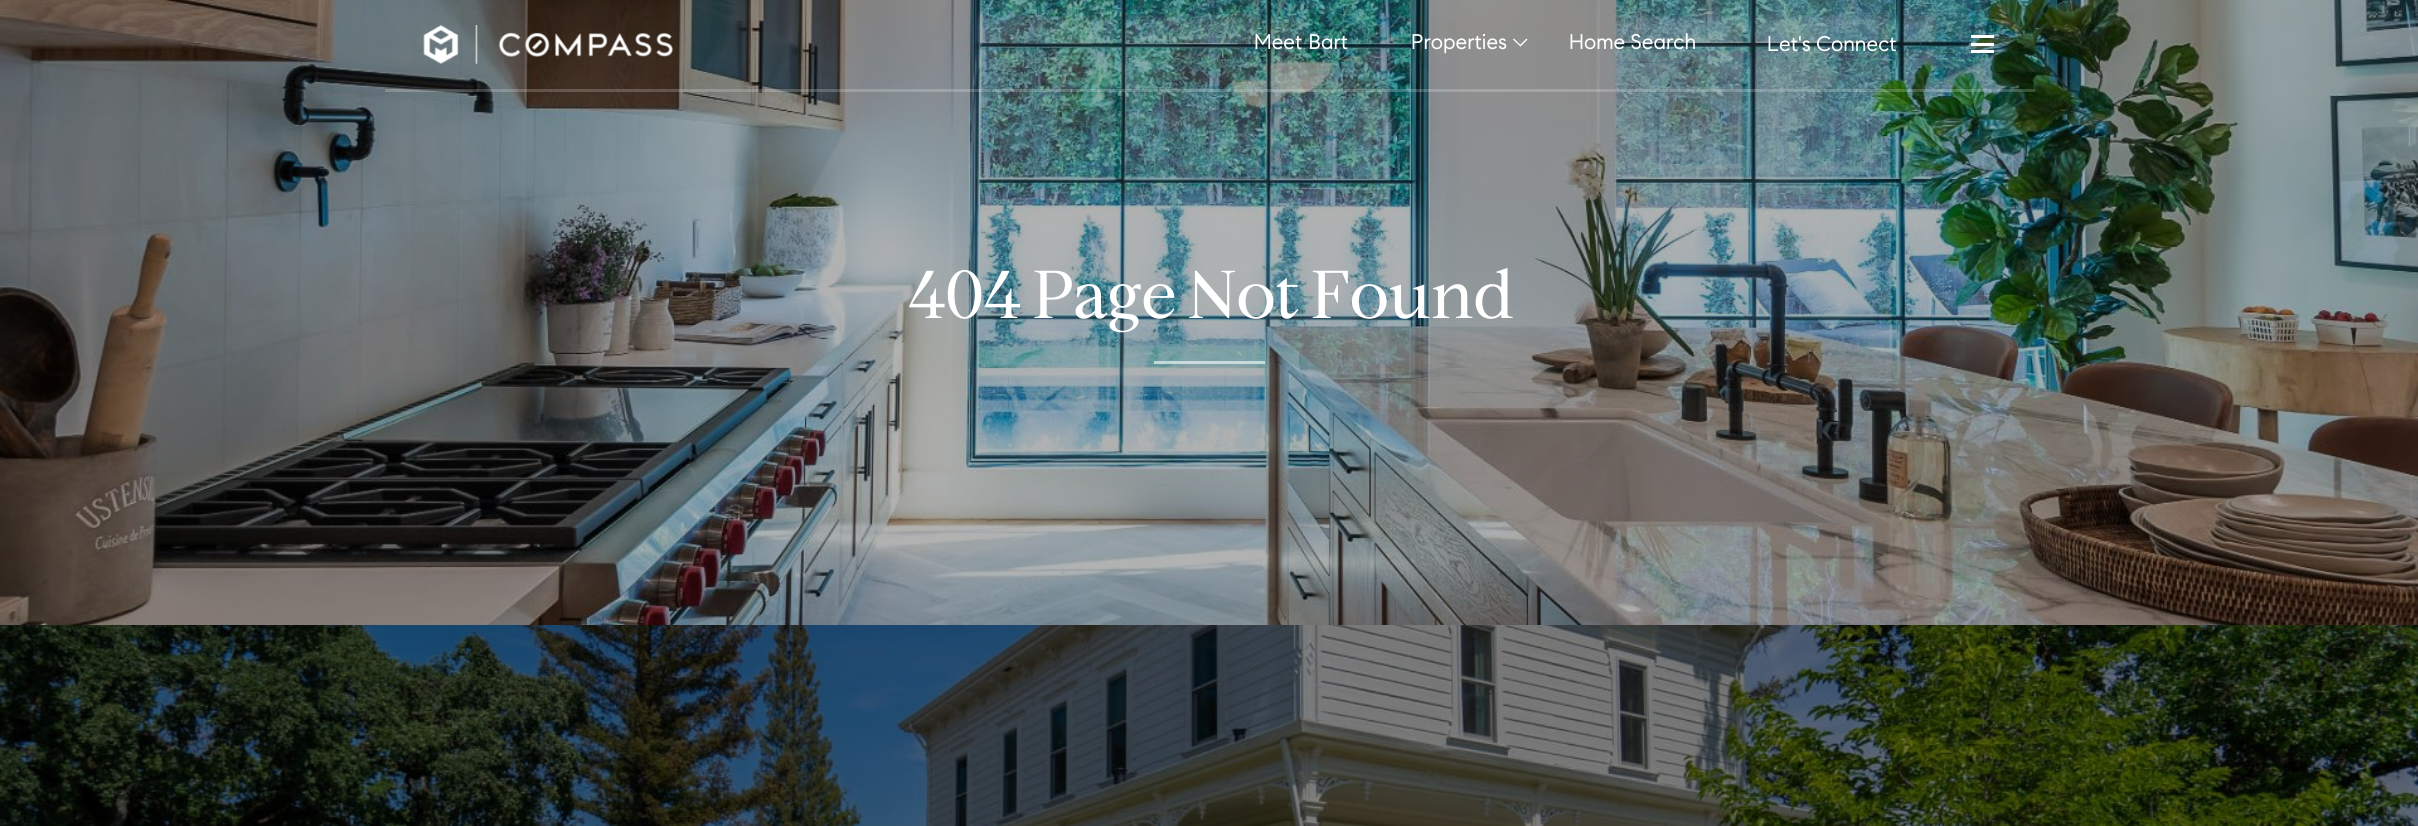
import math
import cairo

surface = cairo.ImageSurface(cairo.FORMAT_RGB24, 2418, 826)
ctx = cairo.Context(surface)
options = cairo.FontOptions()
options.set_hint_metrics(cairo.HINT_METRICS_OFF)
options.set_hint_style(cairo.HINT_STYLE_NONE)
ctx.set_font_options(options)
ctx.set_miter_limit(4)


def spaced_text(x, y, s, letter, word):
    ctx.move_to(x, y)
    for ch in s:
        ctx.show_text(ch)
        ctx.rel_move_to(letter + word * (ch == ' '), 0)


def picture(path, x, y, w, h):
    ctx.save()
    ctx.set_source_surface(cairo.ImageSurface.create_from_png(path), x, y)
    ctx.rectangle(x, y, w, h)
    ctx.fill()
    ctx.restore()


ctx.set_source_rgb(1, 1, 1)
ctx.paint()
picture("img2.png", 0, 0, 2418, 625)
ctx.set_source_rgba(1, 1, 1, 0.2)
ctx.rectangle(385, 89, 1650, 3)
ctx.fill()
picture("img1.png", 423, 25, 250, 39)
ctx.select_font_face("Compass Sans")
ctx.set_font_size(21.25)
ctx.set_source_rgb(1, 1, 1)
ctx.move_to(1254, 49)
ctx.show_text("Meet Bart")
ctx.move_to(1411, 49)
ctx.show_text("Properties")
ctx.new_path()
ctx.move_to(1519.5, 45.5)
ctx.line_to(1526.5, 38.5)
ctx.line_to(1527.5, 39.5)
ctx.line_to(1520.5, 46.5)
ctx.close_path()
ctx.fill()
ctx.new_path()
ctx.move_to(1513, 39.5)
ctx.line_to(1514, 38.5)
ctx.line_to(1521, 45.5)
ctx.line_to(1520.5, 46.5)
ctx.close_path()
ctx.fill()
spaced_text(1569, 49, "Home Search", 0, -1)
spaced_text(1767, 51, "Let's Connect", 0, -1)
ctx.rectangle(1971, 43, 23, 3)
ctx.fill()
ctx.rectangle(1971, 35, 23, 3)
ctx.fill()
ctx.rectangle(1971, 50, 23, 3)
ctx.fill()
ctx.select_font_face("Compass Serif")
ctx.set_font_size(67.5)
spaced_text(908, 318, "404 Page Not Found", 0, -4)
ctx.set_source_rgba(1, 1, 1, 0.6)
ctx.rectangle(1154, 361, 111, 3)
ctx.fill()
picture("img3.png", 0, 625, 2418, 201)
surface.write_to_png("page.png")
